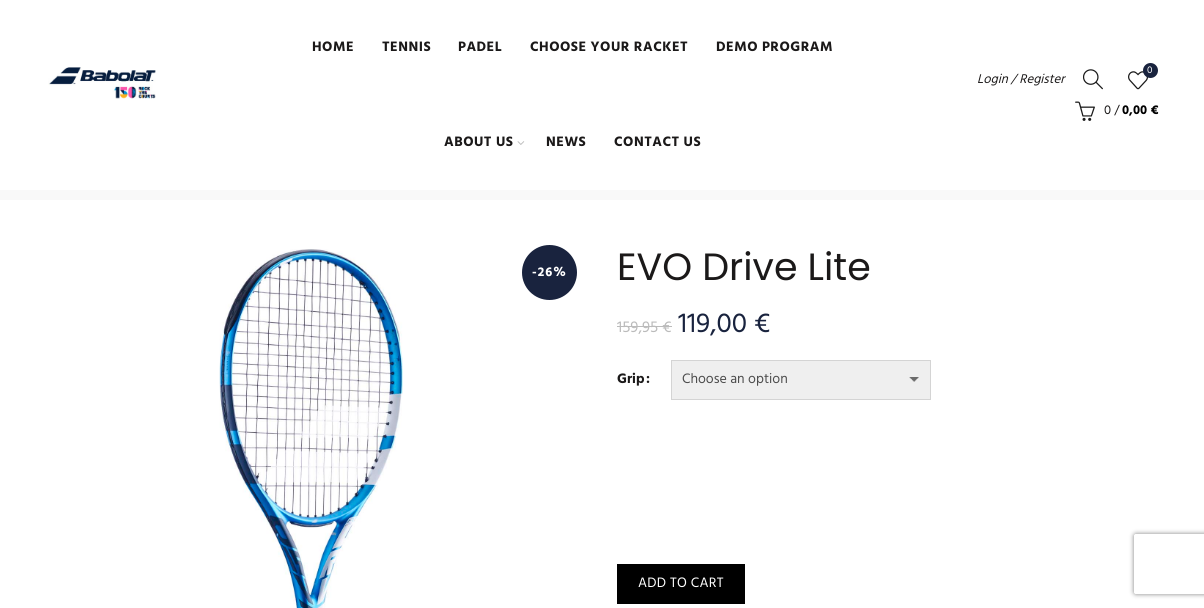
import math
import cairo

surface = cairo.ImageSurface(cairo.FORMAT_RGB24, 1204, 608)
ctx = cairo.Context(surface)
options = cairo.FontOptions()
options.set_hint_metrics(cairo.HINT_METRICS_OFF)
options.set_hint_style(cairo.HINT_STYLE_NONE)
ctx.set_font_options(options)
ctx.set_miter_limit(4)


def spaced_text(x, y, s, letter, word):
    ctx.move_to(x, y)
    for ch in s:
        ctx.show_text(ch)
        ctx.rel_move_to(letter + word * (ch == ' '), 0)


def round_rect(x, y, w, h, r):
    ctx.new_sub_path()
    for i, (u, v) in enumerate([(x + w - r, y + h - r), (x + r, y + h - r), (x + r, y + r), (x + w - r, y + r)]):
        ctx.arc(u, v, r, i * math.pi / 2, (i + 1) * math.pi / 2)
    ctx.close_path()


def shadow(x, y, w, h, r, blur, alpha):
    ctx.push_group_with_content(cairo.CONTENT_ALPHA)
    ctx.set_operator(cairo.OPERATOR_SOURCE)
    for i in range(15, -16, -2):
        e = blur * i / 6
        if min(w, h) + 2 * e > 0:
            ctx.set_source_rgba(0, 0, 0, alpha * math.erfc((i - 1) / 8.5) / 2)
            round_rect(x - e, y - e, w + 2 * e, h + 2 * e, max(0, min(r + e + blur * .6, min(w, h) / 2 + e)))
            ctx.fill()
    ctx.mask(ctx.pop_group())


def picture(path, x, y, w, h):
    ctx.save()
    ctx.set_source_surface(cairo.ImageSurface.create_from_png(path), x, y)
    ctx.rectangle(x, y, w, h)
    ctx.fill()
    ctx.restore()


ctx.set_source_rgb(1, 1, 1)
ctx.paint()
picture("img1.png", 48, 67, 108, 32)
ctx.select_font_face("Hind", cairo.FONT_SLANT_NORMAL, cairo.FONT_WEIGHT_BOLD)
ctx.set_font_size(14)
ctx.set_source_rgb(0.106, 0.098, 0.098)
spaced_text(312, 51, "HOME", 0.5, 0)
spaced_text(382, 51, "TENNIS", 0.5, 0)
spaced_text(458, 51, "PADEL", 0.5, 0)
spaced_text(530, 51, "CHOOSE YOUR RACKET", 0.5, 0)
spaced_text(716, 51, "DEMO PROGRAM", 0.5, 0)
spaced_text(444, 146, "ABOUT US", 0.5, 0)
picture("img2.png", 517, 141, 8, 4)
spaced_text(546, 146, "NEWS", 0.5, 0)
spaced_text(614, 146, "CONTACT US", 0.5, 0)
ctx.select_font_face("Hind", cairo.FONT_SLANT_ITALIC)
ctx.set_font_size(13)
ctx.move_to(977, 83)
ctx.show_text("Login / Register")
picture("img3.png", 1083, 69, 20, 21)
picture("img4.png", 1128, 71, 20, 19)
ctx.set_source_rgb(0.098, 0.137, 0.243)
ctx.arc(1150.5, 70.5, 7.5, 0, 2 * math.pi)
ctx.fill()
ctx.select_font_face("Hind")
ctx.set_font_size(10)
ctx.set_source_rgb(1, 1, 1)
ctx.move_to(1147, 73)
ctx.show_text("0")
picture("img5.png", 1075, 101, 20, 20)
ctx.set_font_size(13)
ctx.set_source_rgb(0.106, 0.098, 0.098)
ctx.move_to(1104, 114)
ctx.show_text("0 /")
ctx.select_font_face("Hind", cairo.FONT_SLANT_NORMAL, cairo.FONT_WEIGHT_BOLD)
ctx.set_source_rgb(0, 0, 0)
ctx.move_to(1122, 114)
ctx.show_text("0,00 €")
ctx.set_source_rgb(0.976, 0.976, 0.976)
ctx.rectangle(0, 190, 1204, 10)
ctx.fill()
picture("img6.png", 219, 249, 184, 359)
ctx.set_source_rgb(0.098, 0.137, 0.243)
ctx.arc(549.5, 272.5, 27.5, 0, 2 * math.pi)
ctx.fill()
ctx.set_source_rgb(1, 1, 1)
spaced_text(532, 276, "-26%", 1, 0)
ctx.select_font_face("Poppins")
ctx.set_font_size(38)
ctx.set_source_rgb(0.106, 0.098, 0.098)
ctx.move_to(617, 280)
ctx.show_text("EVO Drive Lite")
ctx.select_font_face("Hind")
ctx.set_font_size(16)
ctx.set_source_rgb(0.733, 0.733, 0.733)
ctx.move_to(617, 332)
ctx.show_text("159,95 €")
ctx.rectangle(617, 326, 55, 1)
ctx.fill()
ctx.set_font_size(28)
ctx.set_source_rgb(0.098, 0.137, 0.243)
ctx.move_to(678, 332)
ctx.show_text("119,00 €")
ctx.select_font_face("Hind", cairo.FONT_SLANT_NORMAL, cairo.FONT_WEIGHT_BOLD)
ctx.set_font_size(14)
ctx.set_source_rgb(0.106, 0.098, 0.098)
ctx.move_to(617, 383)
ctx.show_text("Grip")
ctx.move_to(646, 383)
ctx.show_text(":")
ctx.set_source_rgb(0.937, 0.937, 0.937)
ctx.rectangle(672, 361, 258, 38)
ctx.fill()
picture("img7.png", 909, 377, 10, 5)
ctx.rectangle(671.5, 360.5, 259, 39)
ctx.set_source_rgb(0.831, 0.831, 0.831)
ctx.set_line_width(1)
ctx.stroke()
ctx.select_font_face("Hind")
ctx.set_source_rgb(0.298, 0.298, 0.298)
ctx.move_to(682, 383)
ctx.show_text("Choose an option")
ctx.set_source_rgb(0, 0, 0)
ctx.rectangle(617, 564, 128, 40)
ctx.fill()
ctx.set_source_rgb(1, 1, 1)
spaced_text(638, 587, "ADD TO CART", 0.25, 0)
ctx.save()
ctx.set_fill_rule(cairo.FILL_RULE_EVEN_ODD)
ctx.new_path()
ctx.move_to(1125, 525)
ctx.line_to(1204, 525)
ctx.line_to(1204, 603)
ctx.line_to(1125, 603)
ctx.close_path()
ctx.move_to(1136, 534)
ctx.line_to(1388, 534)
ctx.curve_to(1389, 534, 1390, 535, 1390, 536)
ctx.line_to(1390, 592)
ctx.curve_to(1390, 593, 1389, 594, 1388, 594)
ctx.line_to(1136, 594)
ctx.curve_to(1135, 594, 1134, 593, 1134, 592)
ctx.line_to(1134, 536)
ctx.curve_to(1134, 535, 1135, 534, 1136, 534)
ctx.close_path()
ctx.clip()
ctx.set_source_rgb(0.502, 0.502, 0.502)
shadow(1134, 534, 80, 60, 2, 2.5, 1)
ctx.restore()
surface.write_to_png("page.png")
